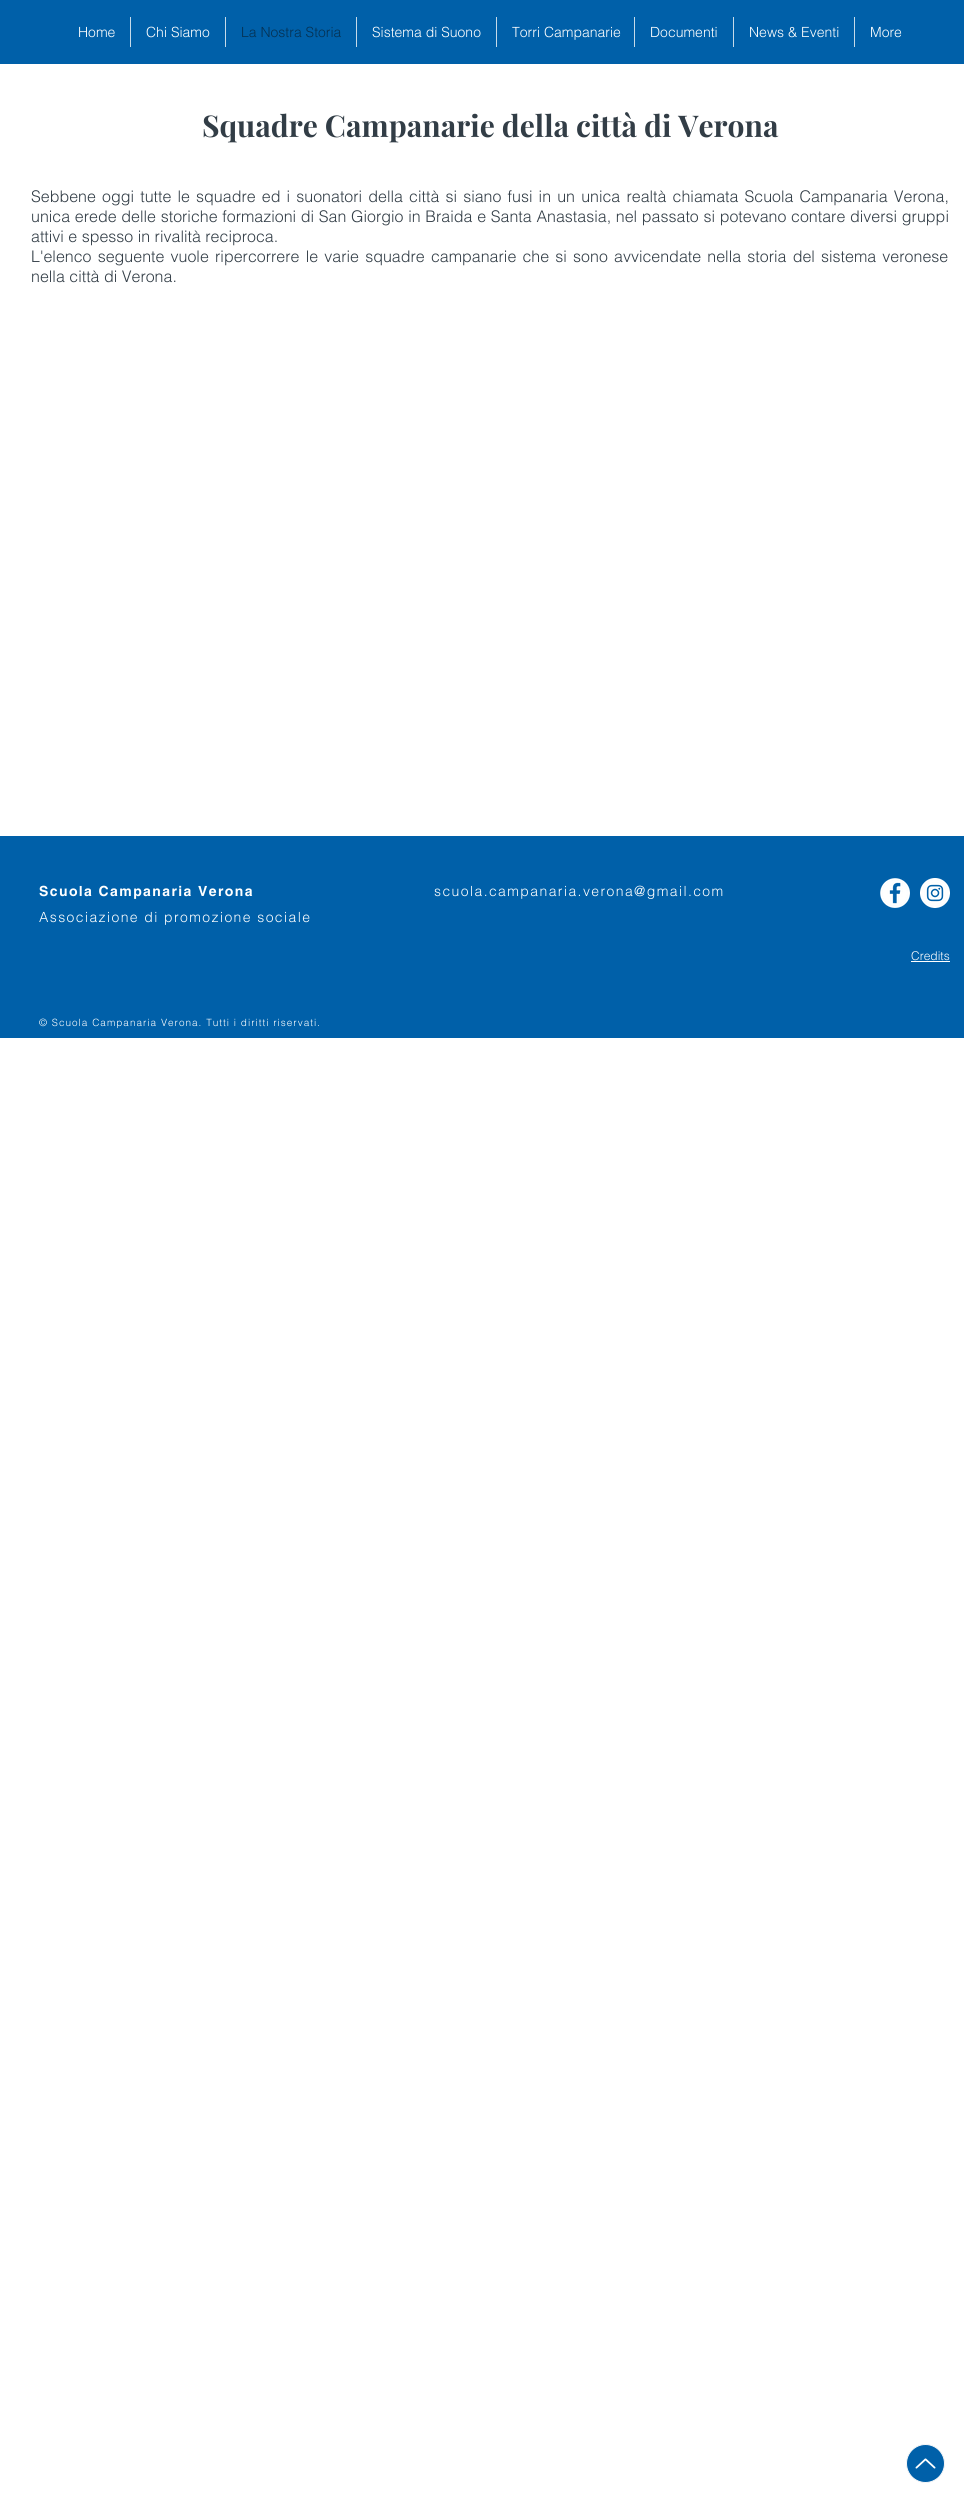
import math
import cairo

surface = cairo.ImageSurface(cairo.FORMAT_RGB24, 964, 2493)
ctx = cairo.Context(surface)
options = cairo.FontOptions()
options.set_hint_metrics(cairo.HINT_METRICS_OFF)
options.set_hint_style(cairo.HINT_STYLE_NONE)
ctx.set_font_options(options)
ctx.set_miter_limit(4)


def spaced_text(x, y, s, letter, word):
    ctx.move_to(x, y)
    for ch in s:
        ctx.show_text(ch)
        ctx.rel_move_to(letter + word * (ch == ' '), 0)


def picture(path, x, y, w, h):
    ctx.save()
    ctx.set_source_surface(cairo.ImageSurface.create_from_png(path), x, y)
    ctx.rectangle(x, y, w, h)
    ctx.fill()
    ctx.restore()


ctx.set_source_rgb(1, 1, 1)
ctx.paint()
ctx.set_source_rgb(0, 0.376, 0.663)
ctx.rectangle(0, 0, 964, 64)
ctx.fill()
ctx.select_font_face("helvetica Light")
ctx.set_font_size(14)
ctx.set_source_rgb(1, 1, 1)
ctx.move_to(78, 37)
ctx.show_text("Home")
ctx.set_source_rgb(0.776, 0.855, 0.914)
ctx.rectangle(130, 17, 1, 30)
ctx.fill()
ctx.set_source_rgb(1, 1, 1)
ctx.move_to(146, 37)
ctx.show_text("Chi Siamo")
ctx.set_source_rgb(0.776, 0.855, 0.914)
ctx.rectangle(225, 17, 1, 30)
ctx.fill()
ctx.set_source_rgb(0.02, 0.192, 0.322)
ctx.move_to(241, 37)
ctx.show_text("La Nostra Storia")
ctx.set_source_rgb(0.776, 0.855, 0.914)
ctx.rectangle(356, 17, 1, 30)
ctx.fill()
ctx.set_source_rgb(1, 1, 1)
ctx.move_to(372, 37)
ctx.show_text("Sistema di Suono")
ctx.set_source_rgb(0.776, 0.855, 0.914)
ctx.rectangle(496, 17, 1, 30)
ctx.fill()
ctx.set_source_rgb(1, 1, 1)
ctx.move_to(512, 37)
ctx.show_text("Torri Campanarie")
ctx.set_source_rgb(0.776, 0.855, 0.914)
ctx.rectangle(634, 17, 1, 30)
ctx.fill()
ctx.set_source_rgb(1, 1, 1)
ctx.move_to(650, 37)
ctx.show_text("Documenti")
ctx.set_source_rgb(0.776, 0.855, 0.914)
ctx.rectangle(733, 17, 1, 30)
ctx.fill()
ctx.set_source_rgb(1, 1, 1)
ctx.move_to(749, 37)
ctx.show_text("News & Eventi")
ctx.set_source_rgb(0.776, 0.855, 0.914)
ctx.rectangle(854, 17, 1, 30)
ctx.fill()
ctx.set_source_rgb(1, 1, 1)
ctx.move_to(870, 37)
ctx.show_text("More")
ctx.select_font_face("Playfair Display", cairo.FONT_SLANT_NORMAL, cairo.FONT_WEIGHT_BOLD)
ctx.set_font_size(30)
ctx.set_source_rgb(0.196, 0.239, 0.275)
ctx.move_to(202, 137)
ctx.show_text("Squadre Campanarie della città di Verona")
ctx.select_font_face("helvetica Light")
ctx.set_font_size(16)
spaced_text(31, 202, "Sebbene oggi tutte le squadre ed i suonatori della città si siano fusi in un unica realtà chiamata Scuola Campanaria Verona,", 0, 1.7)
spaced_text(31, 222, "unica erede delle storiche formazioni di San Giorgio in Braida e Santa Anastasia, nel passato si potevano contare diversi gruppi", 0, 0.25)
ctx.move_to(31, 242)
ctx.show_text("attivi e spesso in rivalità reciproca.")
spaced_text(31, 262, "L'elenco seguente vuole ripercorrere le varie squadre campanarie che si sono avvicendate nella storia del sistema veronese", 0, 1.75)
ctx.move_to(31, 282)
ctx.show_text("nella città di Verona.")
ctx.set_source_rgb(0, 0.376, 0.663)
ctx.rectangle(0, 836, 964, 202)
ctx.fill()
ctx.select_font_face("helvetica", cairo.FONT_SLANT_NORMAL, cairo.FONT_WEIGHT_BOLD)
ctx.set_font_size(14)
ctx.set_source_rgb(1, 1, 1)
spaced_text(39, 896, "Scuola Campanaria Verona", 1.4, 0)
ctx.select_font_face("helvetica Light")
spaced_text(434, 896, "scuola.campanaria.verona@gmail.com", 1.4, 0)
picture("img1.png", 880, 878, 30, 30)
picture("img2.png", 920, 878, 30, 30)
spaced_text(39, 922, "Associazione di promozione sociale", 1.4, 0)
ctx.set_font_size(12)
ctx.move_to(911, 960)
ctx.show_text("Credits")
ctx.rectangle(911, 961, 39, 1)
ctx.fill()
ctx.set_font_size(10)
spaced_text(39, 1026, "© Scuola Campanaria Verona. Tutti i diritti riservati.", 1, 0)
ctx.set_source_rgb(0, 0.376, 0.663)
ctx.new_path()
ctx.arc(925.5, 2463.5, 19, 0, 2 * math.pi)
ctx.fill_preserve()
ctx.set_source_rgb(0.965, 0.965, 0.969)
ctx.set_line_width(1)
ctx.stroke()
picture("img3.png", 915, 2458, 21, 11)
surface.write_to_png("page.png")
